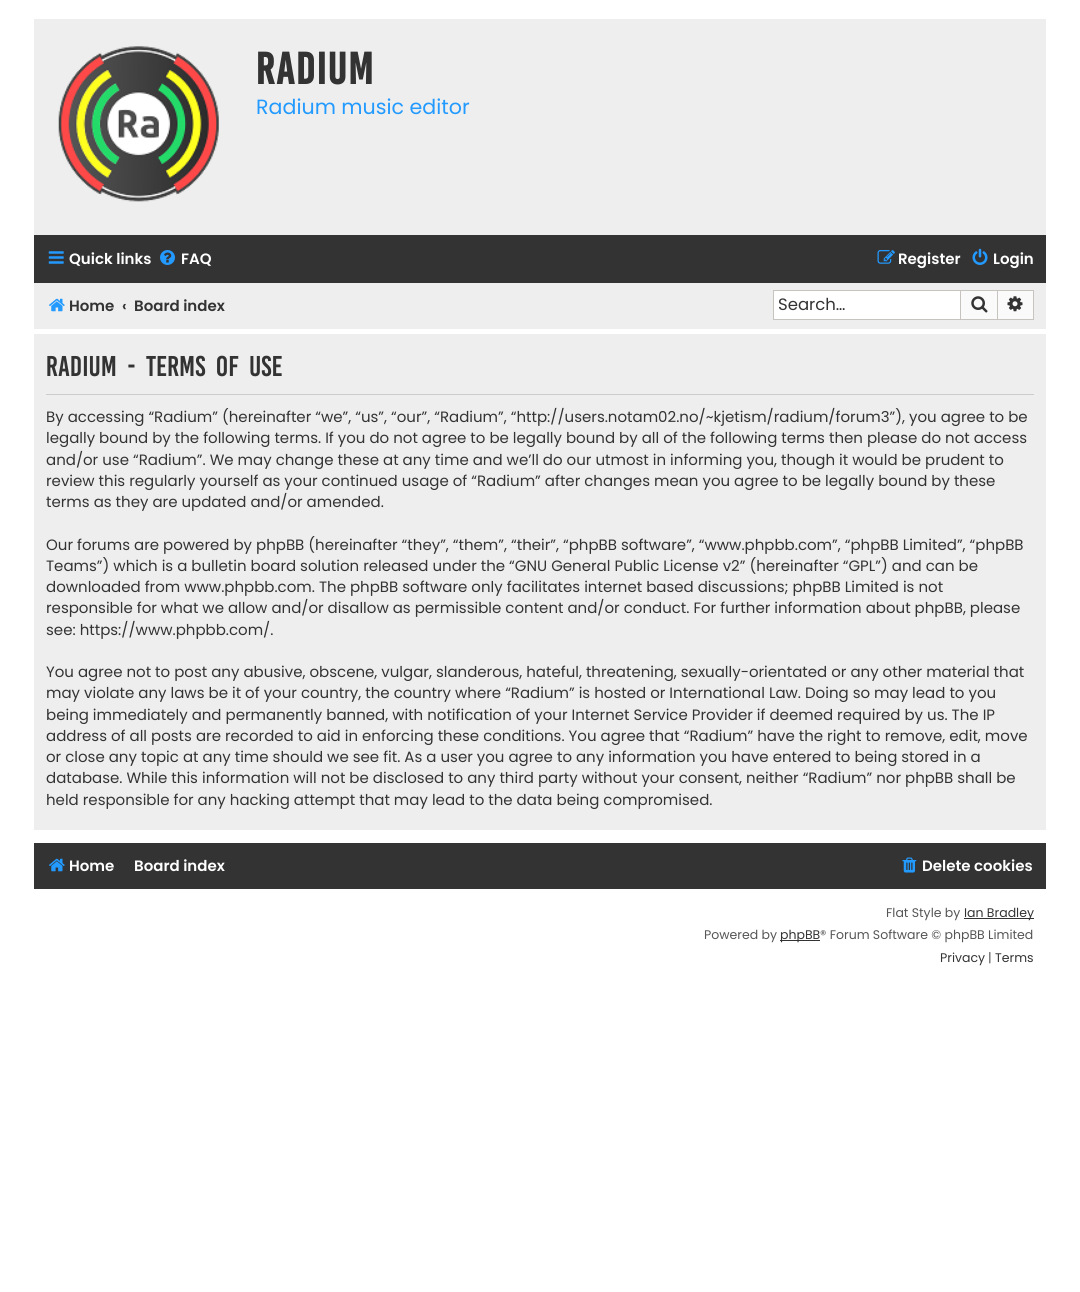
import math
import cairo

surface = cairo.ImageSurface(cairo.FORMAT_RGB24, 1080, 1292)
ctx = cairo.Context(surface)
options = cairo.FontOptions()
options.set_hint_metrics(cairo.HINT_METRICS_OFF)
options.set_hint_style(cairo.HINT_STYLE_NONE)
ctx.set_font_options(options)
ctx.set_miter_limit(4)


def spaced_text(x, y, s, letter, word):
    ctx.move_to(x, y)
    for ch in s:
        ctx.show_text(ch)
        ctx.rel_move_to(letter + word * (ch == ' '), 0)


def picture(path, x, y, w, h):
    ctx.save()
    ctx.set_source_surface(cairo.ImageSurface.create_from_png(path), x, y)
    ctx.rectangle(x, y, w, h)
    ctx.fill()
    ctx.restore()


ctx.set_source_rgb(1, 1, 1)
ctx.paint()
ctx.set_source_rgb(0.933, 0.933, 0.933)
ctx.rectangle(34, 19, 1012, 216)
ctx.fill()
picture("img1.png", 58, 46, 161, 156)
ctx.select_font_face("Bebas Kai", cairo.FONT_SLANT_NORMAL, cairo.FONT_WEIGHT_BOLD)
ctx.set_font_size(34.5)
ctx.set_source_rgb(0.2, 0.2, 0.2)
spaced_text(256, 84, "Radium", 1.25, 0)
ctx.select_font_face("Poppins")
ctx.set_font_size(20.6)
ctx.set_source_rgb(0.137, 0.604, 1)
ctx.move_to(256, 114)
ctx.show_text("Radium music editor")
ctx.set_source_rgb(0.2, 0.2, 0.2)
ctx.rectangle(34, 235, 1012, 48)
ctx.fill()
picture("img2.png", 48, 251, 16, 13)
ctx.select_font_face("Poppins SemiBold")
ctx.set_font_size(15)
ctx.set_source_rgb(1, 1, 1)
ctx.move_to(69, 264)
ctx.show_text("Quick links")
picture("img3.png", 160, 250, 15, 15)
ctx.move_to(181, 264)
ctx.show_text("FAQ")
picture("img4.png", 877, 250, 18, 14)
ctx.move_to(898, 264)
ctx.show_text("Register")
picture("img5.png", 972, 248, 16, 17)
ctx.move_to(993, 264)
ctx.show_text("Login")
ctx.set_source_rgb(0.933, 0.933, 0.933)
ctx.rectangle(34, 283, 1012, 46)
ctx.fill()
picture("img6.png", 49, 298, 16, 14)
ctx.set_source_rgb(0.2, 0.2, 0.2)
ctx.move_to(69, 311)
ctx.show_text("Home")
ctx.move_to(122, 311)
ctx.show_text("‹")
ctx.move_to(134, 311)
ctx.show_text("Board index")
ctx.set_source_rgb(1, 1, 1)
ctx.rectangle(774, 291, 186, 28)
ctx.fill()
ctx.set_source_rgb(0.78, 0.765, 0.749)
ctx.rectangle(773, 290, 187, 1)
ctx.fill()
ctx.rectangle(773, 319, 187, 1)
ctx.fill()
ctx.rectangle(773, 290, 1, 30)
ctx.fill()
ctx.select_font_face("Poppins")
ctx.set_font_size(16.5)
ctx.set_source_rgb(0.2, 0.2, 0.2)
ctx.move_to(778, 310)
ctx.show_text("Search…")
ctx.set_source_rgb(0.98, 0.98, 0.98)
ctx.rectangle(960.5, 290.5, 37, 29)
ctx.fill_preserve()
ctx.set_source_rgb(0.78, 0.765, 0.749)
ctx.set_line_width(1)
ctx.stroke()
picture("img7.png", 971, 296, 17, 17)
ctx.set_source_rgb(0.98, 0.98, 0.98)
ctx.rectangle(998, 291, 35, 28)
ctx.fill()
ctx.set_source_rgb(0.78, 0.765, 0.749)
ctx.rectangle(998, 290, 36, 1)
ctx.fill()
ctx.rectangle(1033, 290, 1, 30)
ctx.fill()
ctx.rectangle(998, 319, 36, 1)
ctx.fill()
picture("img8.png", 1007, 296, 16, 16)
ctx.set_source_rgb(0.933, 0.933, 0.933)
ctx.rectangle(34, 334, 1012, 496)
ctx.fill()
ctx.set_source_rgb(0.8, 0.8, 0.8)
ctx.rectangle(46, 394, 988, 1)
ctx.fill()
ctx.select_font_face("Bebas Kai")
ctx.set_font_size(22)
ctx.set_source_rgb(0.2, 0.2, 0.2)
spaced_text(46, 376, "Radium - Terms of use", 0, 5)
ctx.select_font_face("Poppins")
ctx.set_font_size(15)
ctx.move_to(46, 422)
ctx.show_text("By accessing “Radium” (hereinafter “we”, “us”, “our”, “Radium”, “http://users.notam02.no/~kjetism/radium/forum3”), you agree to be")
ctx.move_to(46, 443)
ctx.show_text("legally bound by the following terms. If you do not agree to be legally bound by all of the following terms then please do not access")
ctx.move_to(46, 465)
ctx.show_text("and/or use “Radium”. We may change these at any time and we’ll do our utmost in informing you, though it would be prudent to")
ctx.move_to(46, 486)
ctx.show_text("review this regularly yourself as your continued usage of “Radium” after changes mean you agree to be legally bound by these")
ctx.move_to(46, 507)
ctx.show_text("terms as they are updated and/or amended.")
ctx.move_to(46, 550)
ctx.show_text("Our forums are powered by phpBB (hereinafter “they”, “them”, “their”, “phpBB software”, “www.phpbb.com”, “phpBB Limited”, “phpBB")
ctx.move_to(46, 571)
ctx.show_text("Teams”) which is a bulletin board solution released under the “GNU General Public License v2” (hereinafter “GPL”) and can be")
ctx.move_to(46, 592)
ctx.show_text("downloaded from www.phpbb.com. The phpBB software only facilitates internet based discussions; phpBB Limited is not")
ctx.move_to(46, 613)
ctx.show_text("responsible for what we allow and/or disallow as permissible content and/or conduct. For further information about phpBB, please")
ctx.move_to(46, 635)
ctx.show_text("see: https://www.phpbb.com/.")
ctx.move_to(46, 677)
ctx.show_text("You agree not to post any abusive, obscene, vulgar, slanderous, hateful, threatening, sexually-orientated or any other material that")
ctx.move_to(46, 698)
ctx.show_text("may violate any laws be it of your country, the country where “Radium” is hosted or International Law. Doing so may lead to you")
ctx.move_to(46, 720)
ctx.show_text("being immediately and permanently banned, with notification of your Internet Service Provider if deemed required by us. The IP")
ctx.move_to(46, 741)
ctx.show_text("address of all posts are recorded to aid in enforcing these conditions. You agree that “Radium” have the right to remove, edit, move")
ctx.move_to(46, 762)
ctx.show_text("or close any topic at any time should we see fit. As a user you agree to any information you have entered to being stored in a")
ctx.move_to(46, 783)
ctx.show_text("database. While this information will not be disclosed to any third party without your consent, neither “Radium” nor phpBB shall be")
ctx.move_to(46, 805)
ctx.show_text("held responsible for any hacking attempt that may lead to the data being compromised.")
ctx.rectangle(34, 843, 1012, 46)
ctx.fill()
picture("img9.png", 49, 858, 16, 14)
ctx.select_font_face("Poppins SemiBold")
ctx.set_source_rgb(1, 1, 1)
ctx.move_to(69, 871)
ctx.show_text("Home")
ctx.move_to(134, 871)
ctx.show_text("Board index")
picture("img10.png", 902, 857, 15, 16)
ctx.move_to(922, 871)
ctx.show_text("Delete cookies")
ctx.select_font_face("Poppins")
ctx.set_font_size(12.5)
ctx.set_source_rgb(0.333, 0.333, 0.333)
ctx.move_to(886, 917)
ctx.show_text("Flat Style by")
ctx.set_source_rgb(0.2, 0.2, 0.2)
ctx.rectangle(964, 918, 70, 1)
ctx.fill()
ctx.move_to(964, 917)
ctx.show_text("Ian Bradley")
ctx.set_source_rgb(0.333, 0.333, 0.333)
ctx.move_to(704, 939)
ctx.show_text("Powered by")
ctx.set_source_rgb(0.2, 0.2, 0.2)
ctx.rectangle(780, 940, 40, 1)
ctx.fill()
ctx.move_to(780, 939)
ctx.show_text("phpBB")
ctx.set_source_rgb(0.333, 0.333, 0.333)
ctx.move_to(820, 939)
ctx.show_text("® Forum Software © phpBB Limited")
ctx.set_source_rgb(0.2, 0.2, 0.2)
ctx.move_to(940, 962)
ctx.show_text("Privacy")
ctx.set_source_rgb(0.333, 0.333, 0.333)
ctx.move_to(988, 962)
ctx.show_text("|")
ctx.set_source_rgb(0.2, 0.2, 0.2)
ctx.move_to(995, 962)
ctx.show_text("Terms")
surface.write_to_png("page.png")
